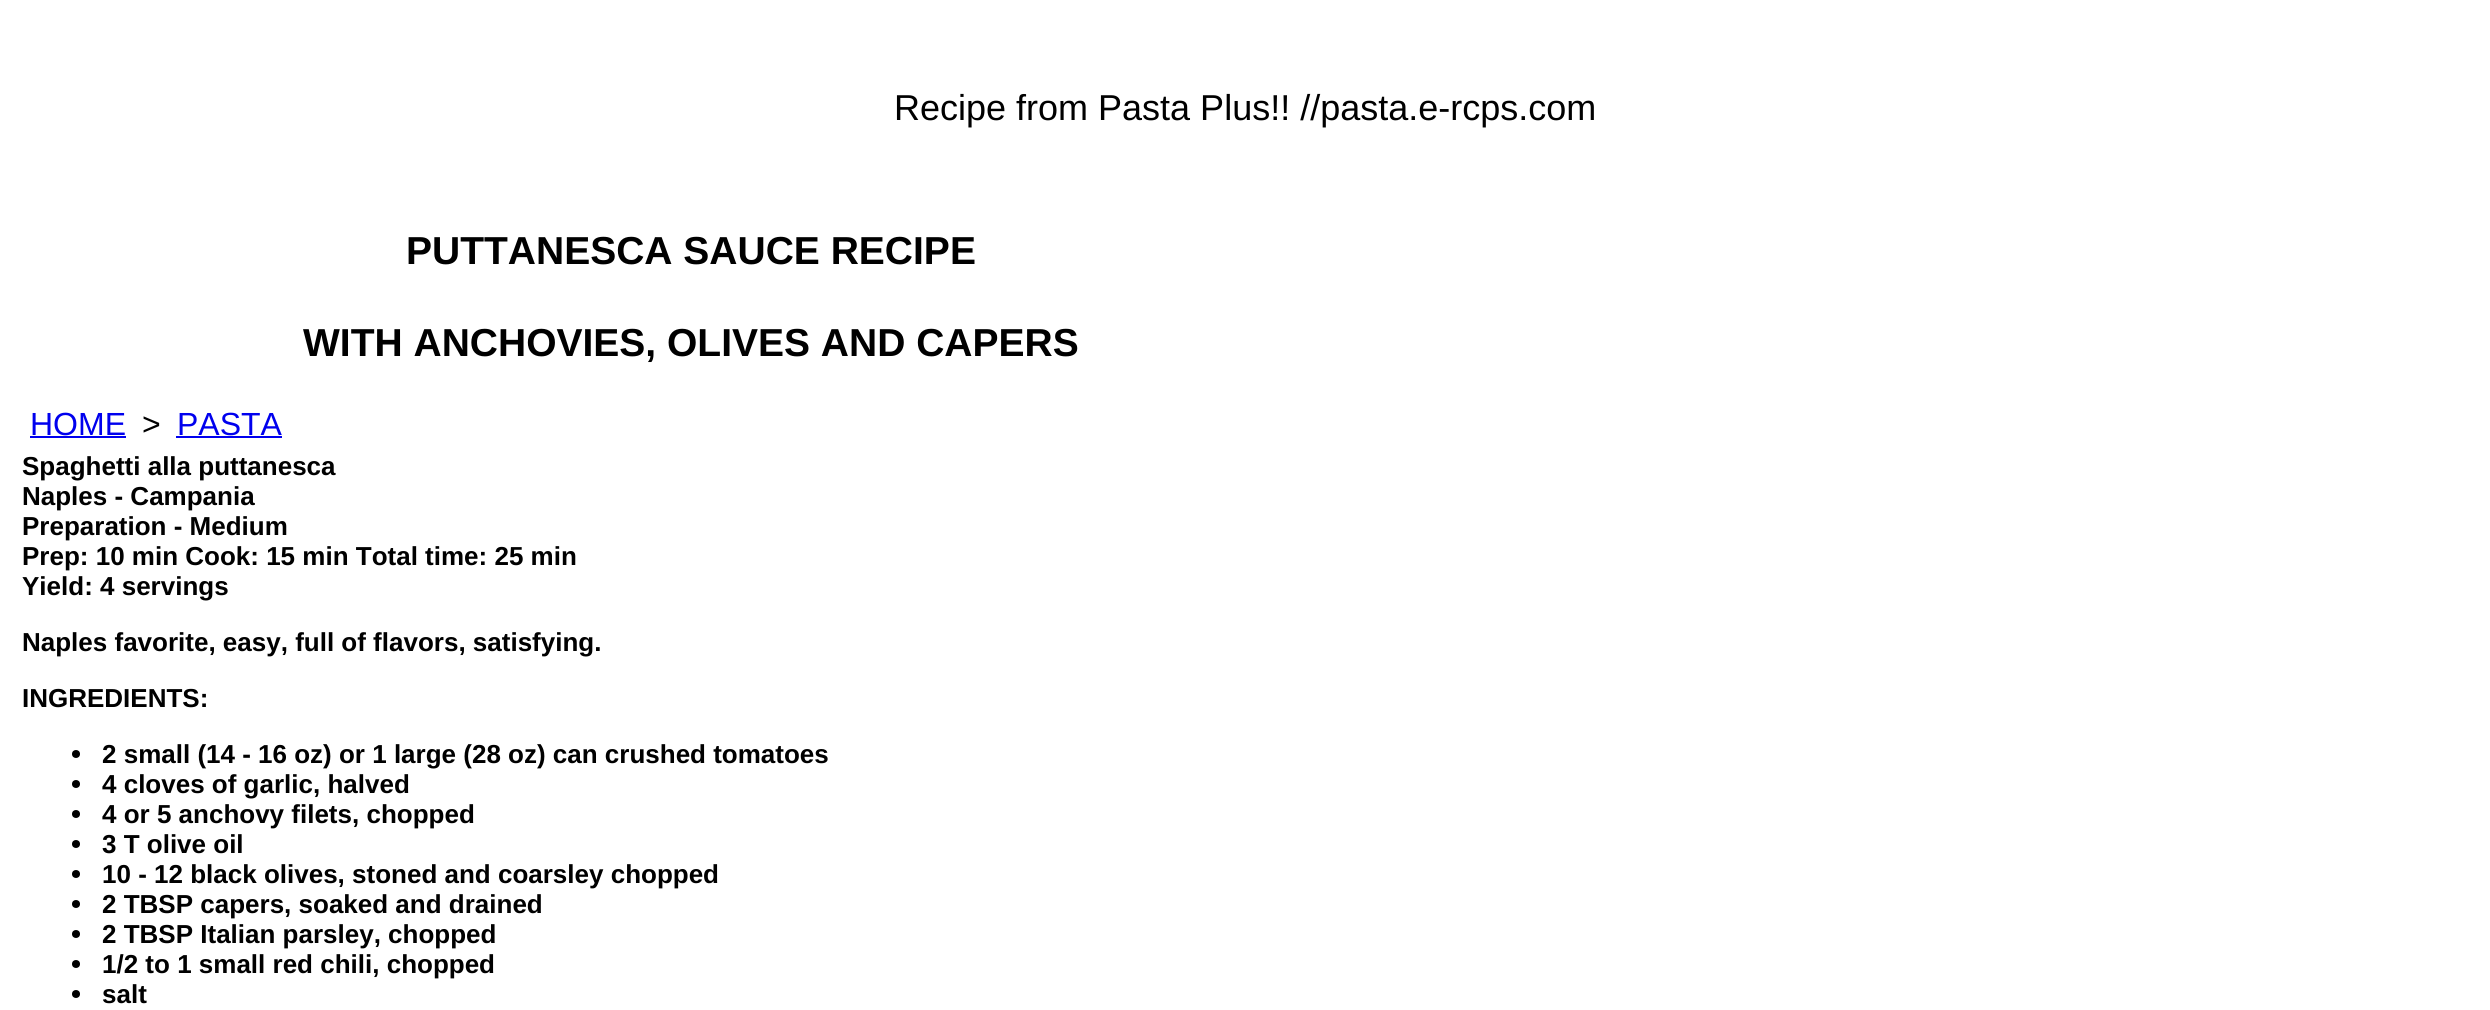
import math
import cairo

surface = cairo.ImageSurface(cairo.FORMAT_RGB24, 2490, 1010)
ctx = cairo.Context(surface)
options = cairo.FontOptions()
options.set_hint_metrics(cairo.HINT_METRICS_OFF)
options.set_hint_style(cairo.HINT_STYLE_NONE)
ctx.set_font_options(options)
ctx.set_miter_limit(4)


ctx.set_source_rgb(1, 1, 1)
ctx.paint()
ctx.select_font_face("Liberation Sans")
ctx.set_font_size(36)
ctx.set_source_rgb(0, 0, 0)
ctx.move_to(894, 120)
ctx.show_text("Recipe from Pasta Plus!! //pasta.e-rcps.com")
ctx.select_font_face("Liberation Sans", cairo.FONT_SLANT_NORMAL, cairo.FONT_WEIGHT_BOLD)
ctx.set_font_size(39)
ctx.move_to(406, 264)
ctx.show_text("PUTTANESCA SAUCE RECIPE")
ctx.move_to(303, 356)
ctx.show_text("WITH ANCHOVIES, OLIVES AND CAPERS")
ctx.select_font_face("Liberation Sans")
ctx.set_font_size(32)
ctx.set_source_rgb(0, 0, 0.933)
ctx.move_to(30, 435)
ctx.show_text("HOME")
ctx.rectangle(30, 436, 96, 2)
ctx.fill()
ctx.set_source_rgb(0, 0, 0)
ctx.move_to(142, 435)
ctx.show_text(">")
ctx.set_source_rgb(0, 0, 0.933)
ctx.move_to(177, 435)
ctx.show_text("PASTA")
ctx.rectangle(176, 436, 106, 2)
ctx.fill()
ctx.select_font_face("Liberation Sans", cairo.FONT_SLANT_NORMAL, cairo.FONT_WEIGHT_BOLD)
ctx.set_font_size(26)
ctx.set_source_rgb(0, 0, 0)
ctx.move_to(22, 475)
ctx.show_text("Spaghetti alla puttanesca")
ctx.move_to(22, 505)
ctx.show_text("Naples - Campania")
ctx.move_to(22, 535)
ctx.show_text("Preparation - Medium")
ctx.move_to(22, 565)
ctx.show_text("Prep: 10 min Cook: 15 min Total time: 25 min")
ctx.move_to(22, 595)
ctx.show_text("Yield: 4 servings")
ctx.move_to(22, 651)
ctx.show_text("Naples favorite, easy, full of flavors, satisfying.")
ctx.move_to(22, 707)
ctx.show_text("INGREDIENTS:")
ctx.new_path()
ctx.arc(76, 754, 4, 0, 2 * math.pi)
ctx.fill()
ctx.move_to(102, 763)
ctx.show_text("2 small (14 - 16 oz) or 1 large (28 oz) can crushed tomatoes")
ctx.new_path()
ctx.arc(76, 784, 4, 0, 2 * math.pi)
ctx.fill()
ctx.move_to(102, 793)
ctx.show_text("4 cloves of garlic, halved")
ctx.new_path()
ctx.arc(76, 814, 4, 0, 2 * math.pi)
ctx.fill()
ctx.move_to(102, 823)
ctx.show_text("4 or 5 anchovy filets, chopped")
ctx.new_path()
ctx.arc(76, 844, 4, 0, 2 * math.pi)
ctx.fill()
ctx.move_to(102, 853)
ctx.show_text("3 T olive oil")
ctx.new_path()
ctx.arc(76, 874, 4, 0, 2 * math.pi)
ctx.fill()
ctx.move_to(102, 883)
ctx.show_text("10 - 12 black olives, stoned and coarsley chopped")
ctx.new_path()
ctx.arc(76, 904, 4, 0, 2 * math.pi)
ctx.fill()
ctx.move_to(102, 913)
ctx.show_text("2 TBSP capers, soaked and drained")
ctx.new_path()
ctx.arc(76, 934, 4, 0, 2 * math.pi)
ctx.fill()
ctx.move_to(102, 943)
ctx.show_text("2 TBSP Italian parsley, chopped")
ctx.new_path()
ctx.arc(76, 964, 4, 0, 2 * math.pi)
ctx.fill()
ctx.move_to(102, 973)
ctx.show_text("1/2 to 1 small red chili, chopped")
ctx.new_path()
ctx.arc(76, 994, 4, 0, 2 * math.pi)
ctx.fill()
ctx.move_to(102, 1003)
ctx.show_text("salt")
surface.write_to_png("page.png")
